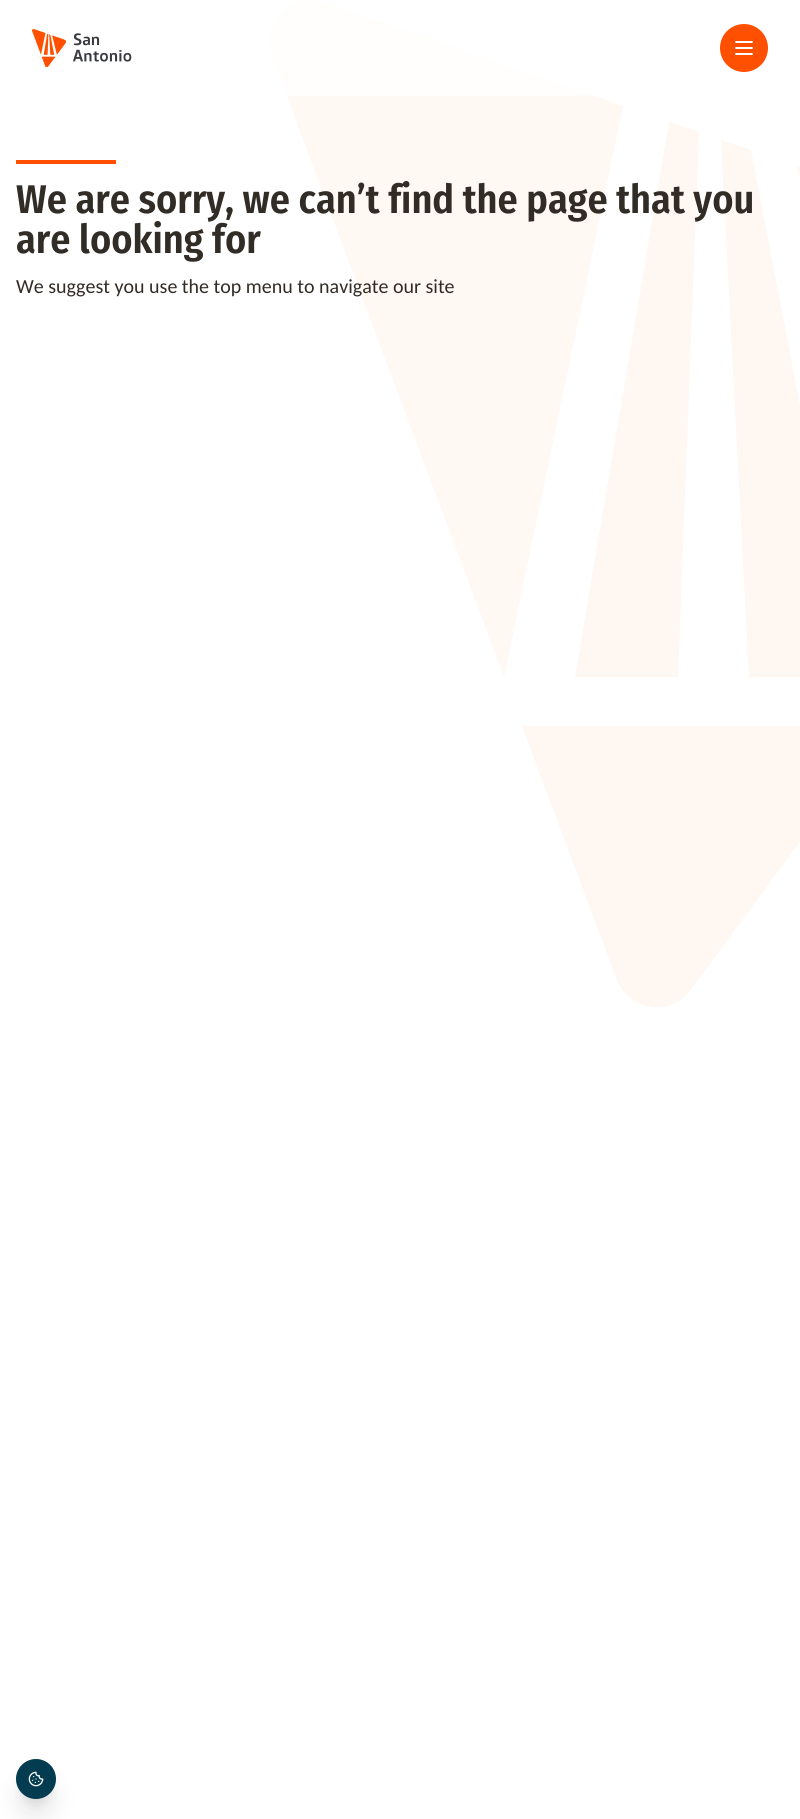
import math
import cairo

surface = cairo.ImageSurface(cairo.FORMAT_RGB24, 800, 1819)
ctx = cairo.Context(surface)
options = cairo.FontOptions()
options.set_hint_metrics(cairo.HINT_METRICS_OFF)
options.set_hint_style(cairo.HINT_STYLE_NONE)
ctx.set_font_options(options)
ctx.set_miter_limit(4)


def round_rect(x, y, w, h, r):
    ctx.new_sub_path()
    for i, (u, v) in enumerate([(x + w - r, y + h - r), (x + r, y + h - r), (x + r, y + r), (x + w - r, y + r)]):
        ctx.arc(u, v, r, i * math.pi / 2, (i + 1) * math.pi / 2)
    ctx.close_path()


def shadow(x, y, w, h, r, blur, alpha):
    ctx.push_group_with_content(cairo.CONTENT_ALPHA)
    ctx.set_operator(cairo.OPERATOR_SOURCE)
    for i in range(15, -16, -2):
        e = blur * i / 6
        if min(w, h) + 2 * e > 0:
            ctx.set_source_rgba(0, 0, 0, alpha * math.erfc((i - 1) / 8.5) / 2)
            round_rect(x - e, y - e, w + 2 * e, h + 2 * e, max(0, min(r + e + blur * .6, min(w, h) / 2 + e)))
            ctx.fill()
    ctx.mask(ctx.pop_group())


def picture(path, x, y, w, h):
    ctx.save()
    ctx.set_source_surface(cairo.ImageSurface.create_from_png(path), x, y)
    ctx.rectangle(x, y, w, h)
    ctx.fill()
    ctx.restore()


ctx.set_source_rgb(1, 1, 1)
ctx.paint()
ctx.set_source_rgb(1, 0.965, 0.949)
ctx.new_path()
ctx.move_to(669, 122)
ctx.line_to(575, 677)
ctx.line_to(678, 677)
ctx.line_to(699, 132)
ctx.close_path()
ctx.fill()
ctx.set_source_rgb(1, 0.969, 0.953)
ctx.new_path()
ctx.move_to(623, 106)
ctx.line_to(325, 2)
ctx.curve_to(291, -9, 260, 24, 272, 56)
ctx.line_to(504, 677)
ctx.close_path()
ctx.fill()
ctx.set_source_rgba(1, 1, 1, 0.8)
ctx.rectangle(269, 0, 325, 96)
ctx.fill()
picture("img1.png", 32, 29, 100, 38)
ctx.set_source_rgb(0.996, 0.314, 0)
ctx.arc(744, 48, 23, 0, 2 * math.pi)
ctx.fill_preserve()
ctx.stroke()
picture("img2.png", 735, 41, 18, 14)
ctx.set_source_rgb(1, 0.965, 0.949)
ctx.new_path()
ctx.move_to(721, 140)
ctx.line_to(749, 677)
ctx.line_to(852, 677)
ctx.line_to(751, 150)
ctx.close_path()
ctx.fill()
ctx.new_path()
ctx.move_to(690, 991)
ctx.line_to(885, 726)
ctx.line_to(522, 726)
ctx.line_to(617, 980)
ctx.curve_to(630, 1011, 670, 1017, 690, 991)
ctx.close_path()
ctx.fill()
ctx.new_path()
ctx.move_to(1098, 271)
ctx.line_to(797, 166)
ctx.line_to(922, 677)
ctx.line_to(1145, 378)
ctx.curve_to(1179, 331, 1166, 293, 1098, 271)
ctx.close_path()
ctx.fill()
ctx.set_source_rgb(0.996, 0.314, 0)
ctx.rectangle(16, 160, 100, 4)
ctx.fill()
ctx.select_font_face("Fira Sans Condensed SemiBold")
ctx.set_font_size(40)
ctx.set_source_rgb(0.196, 0.173, 0.153)
ctx.move_to(16, 213)
ctx.show_text("We are sorry, we can’t find the page that you")
ctx.move_to(16, 253)
ctx.show_text("are looking for")
ctx.select_font_face("Carlito")
ctx.set_font_size(20)
ctx.move_to(16, 293)
ctx.show_text("We suggest you use the top menu to navigate our site")
ctx.set_source_rgb(0, 0, 0)
shadow(22, 1773, 28, 28, 14, 5, 0.1)
shadow(21, 1784, 30, 30, 15, 12.5, 0.1)
ctx.set_source_rgb(0.012, 0.231, 0.314)
ctx.arc(36, 1779, 20, 0, 2 * math.pi)
ctx.fill()
picture("img3.png", 28, 1771, 16, 16)
surface.write_to_png("page.png")
